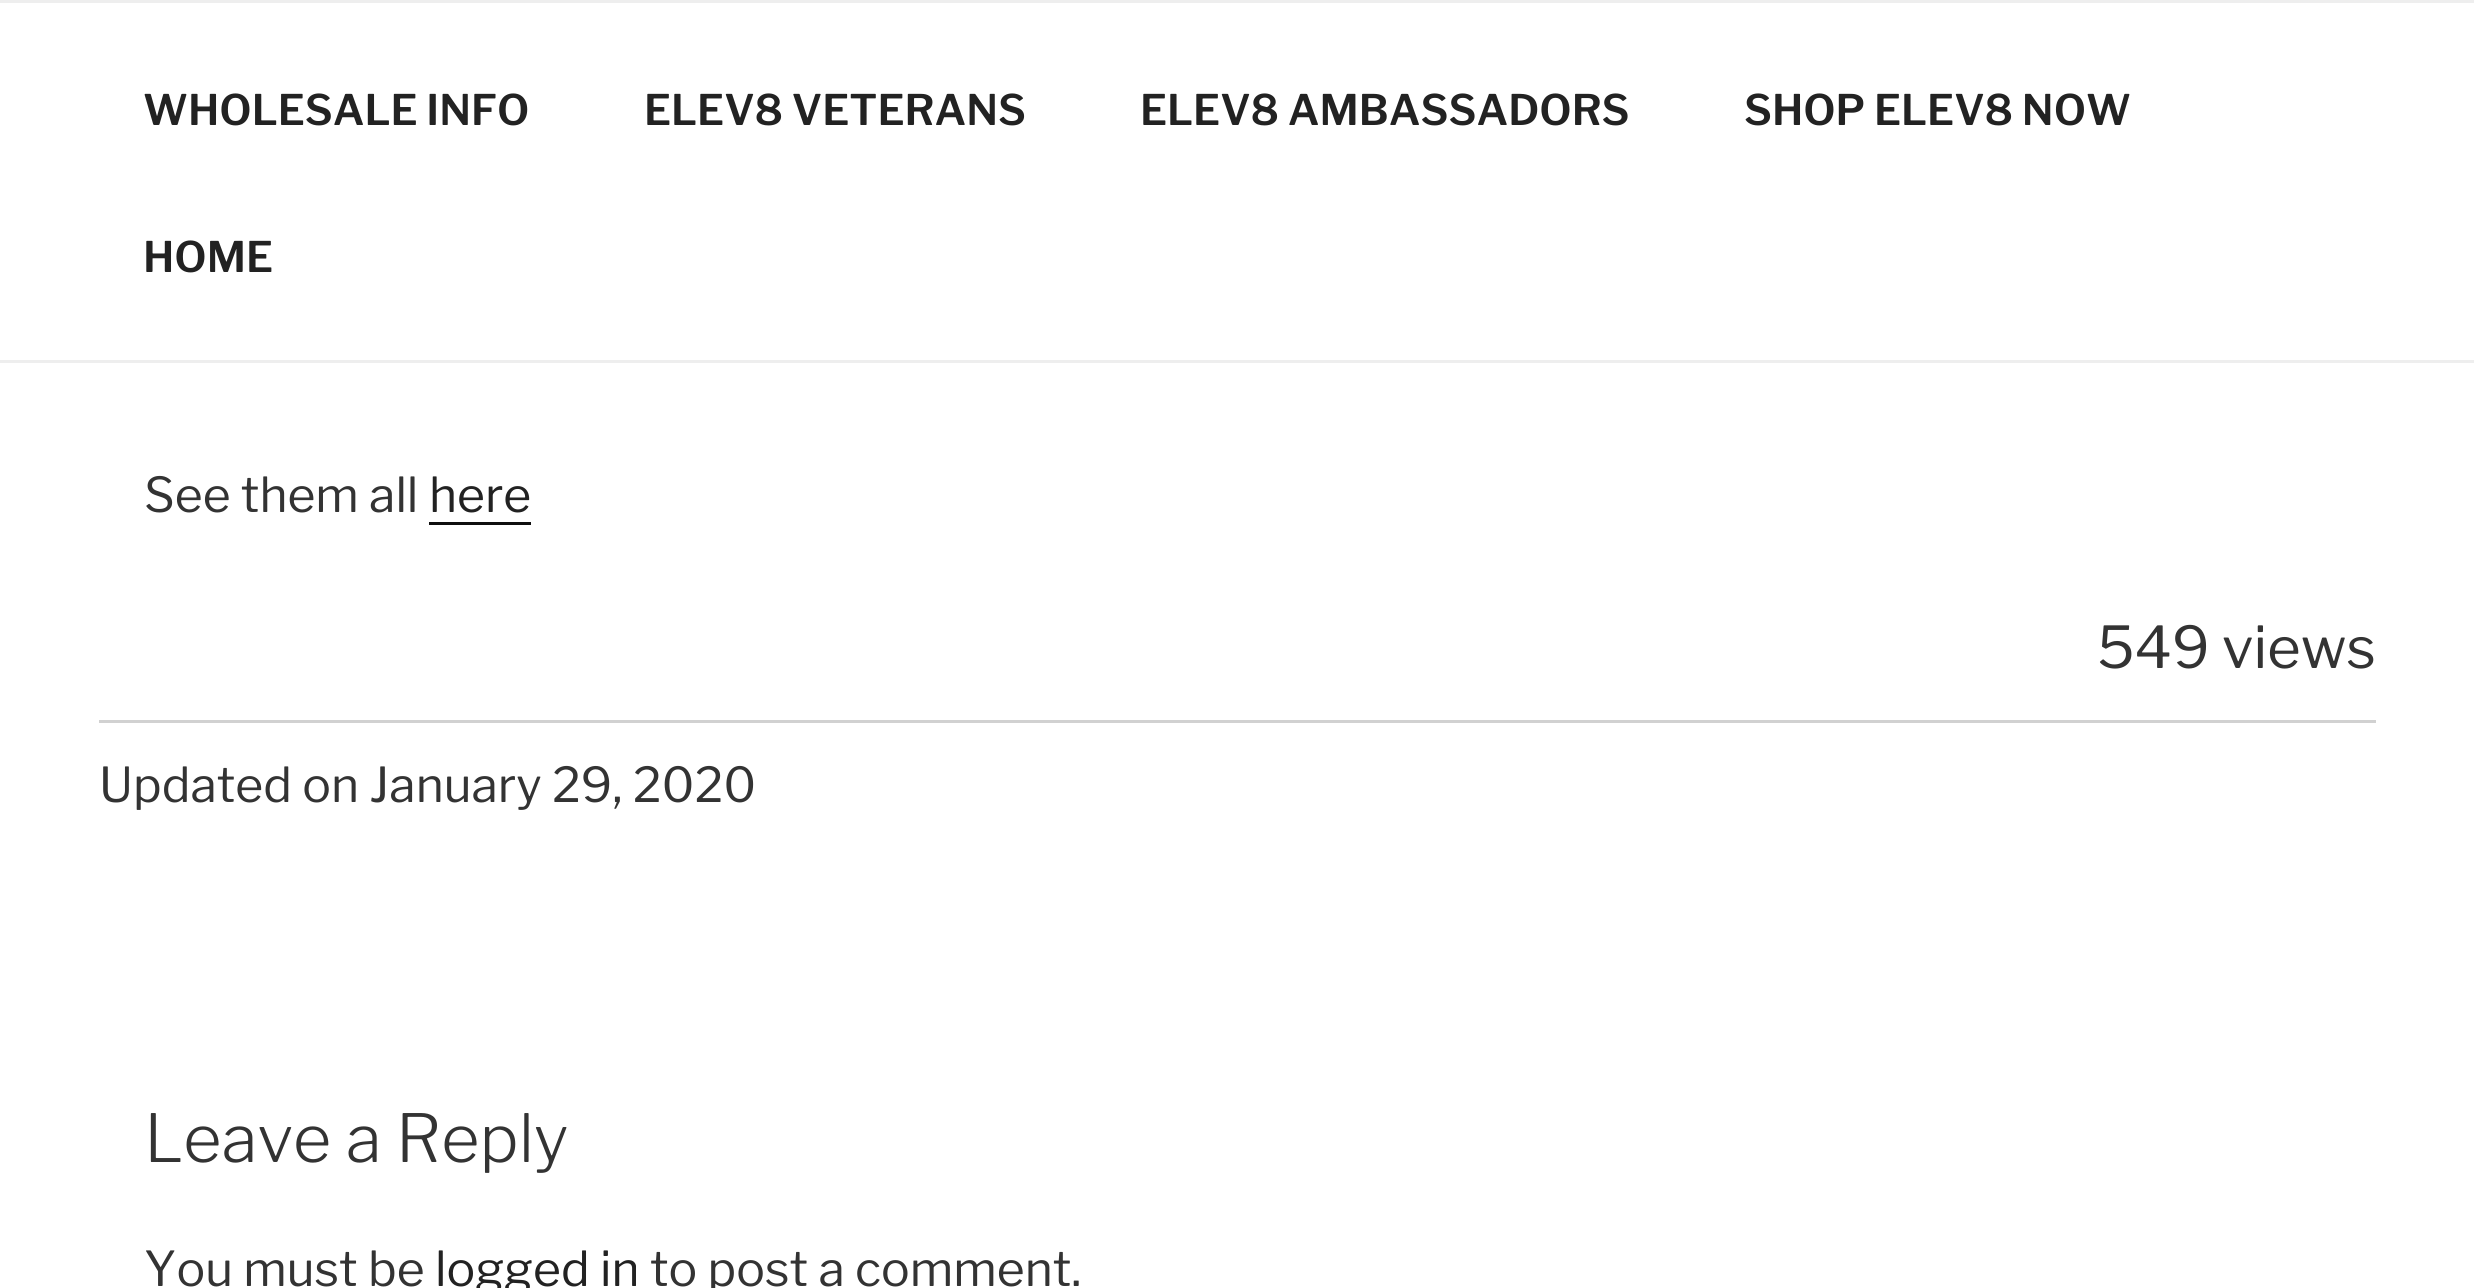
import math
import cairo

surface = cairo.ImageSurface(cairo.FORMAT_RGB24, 2474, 1288)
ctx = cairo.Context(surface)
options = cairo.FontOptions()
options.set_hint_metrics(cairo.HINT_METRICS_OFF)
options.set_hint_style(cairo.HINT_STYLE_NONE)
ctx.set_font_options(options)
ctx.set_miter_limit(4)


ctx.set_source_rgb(1, 1, 1)
ctx.paint()
ctx.set_source_rgb(0.933, 0.933, 0.933)
ctx.rectangle(0, 0, 2474, 3)
ctx.fill()
ctx.rectangle(0, 360, 2474, 3)
ctx.fill()
ctx.select_font_face("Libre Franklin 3 Thin")
ctx.set_font_size(42)
ctx.set_source_rgb(0.133, 0.133, 0.133)
ctx.move_to(143, 125)
ctx.show_text("WHOLESALE INFO")
ctx.move_to(644, 125)
ctx.show_text("ELEV8 VETERANS")
ctx.move_to(1140, 125)
ctx.show_text("ELEV8 AMBASSADORS")
ctx.move_to(1744, 125)
ctx.show_text("SHOP ELEV8 NOW")
ctx.move_to(143, 272)
ctx.show_text("HOME")
ctx.select_font_face("Libre Franklin Thin")
ctx.set_font_size(48)
ctx.set_source_rgb(0.2, 0.2, 0.2)
ctx.move_to(144, 512)
ctx.show_text("See them all")
ctx.set_source_rgb(0.133, 0.133, 0.133)
ctx.move_to(429, 512)
ctx.show_text("here")
ctx.set_source_rgb(0.059, 0.059, 0.059)
ctx.rectangle(429, 522, 102, 3)
ctx.fill()
ctx.set_font_size(57.5)
ctx.set_source_rgb(0.2, 0.2, 0.2)
ctx.move_to(2097, 668)
ctx.show_text("549 views")
ctx.set_source_rgb(0.82, 0.82, 0.82)
ctx.rectangle(99, 720, 2277, 3)
ctx.fill()
ctx.set_font_size(48)
ctx.set_source_rgb(0.2, 0.2, 0.2)
ctx.move_to(99, 802)
ctx.show_text("Updated on January 29, 2020")
ctx.select_font_face("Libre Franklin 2 Thin")
ctx.set_font_size(66)
ctx.move_to(144, 1162)
ctx.show_text("Leave a Reply")
ctx.select_font_face("Libre Franklin Thin")
ctx.set_font_size(48)
ctx.move_to(144, 1286)
ctx.show_text("You must be")
ctx.set_source_rgb(0.133, 0.133, 0.133)
ctx.move_to(435, 1286)
ctx.show_text("logged in")
ctx.set_source_rgb(0.2, 0.2, 0.2)
ctx.move_to(650, 1286)
ctx.show_text("to post a comment.")
surface.write_to_png("page.png")
